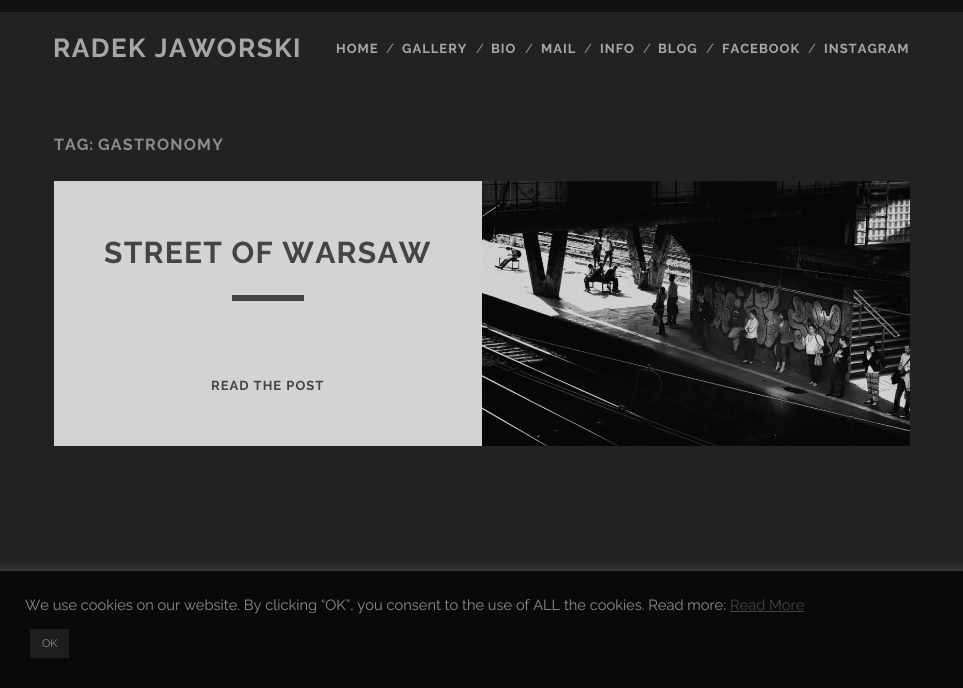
import math
import cairo

surface = cairo.ImageSurface(cairo.FORMAT_RGB24, 963, 688)
ctx = cairo.Context(surface)
options = cairo.FontOptions()
options.set_hint_metrics(cairo.HINT_METRICS_OFF)
options.set_hint_style(cairo.HINT_STYLE_NONE)
ctx.set_font_options(options)
ctx.set_miter_limit(4)


def spaced_text(x, y, s, letter, word):
    ctx.move_to(x, y)
    for ch in s:
        ctx.show_text(ch)
        ctx.rel_move_to(letter + word * (ch == ' '), 0)


def round_rect(x, y, w, h, r):
    ctx.new_sub_path()
    for i, (u, v) in enumerate([(x + w - r, y + h - r), (x + r, y + h - r), (x + r, y + r), (x + w - r, y + r)]):
        ctx.arc(u, v, r, i * math.pi / 2, (i + 1) * math.pi / 2)
    ctx.close_path()


def shadow(x, y, w, h, r, blur, alpha):
    ctx.push_group_with_content(cairo.CONTENT_ALPHA)
    ctx.set_operator(cairo.OPERATOR_SOURCE)
    for i in range(15, -16, -2):
        e = blur * i / 6
        if min(w, h) + 2 * e > 0:
            ctx.set_source_rgba(0, 0, 0, alpha * math.erfc((i - 1) / 8.5) / 2)
            round_rect(x - e, y - e, w + 2 * e, h + 2 * e, max(0, min(r + e + blur * .6, min(w, h) / 2 + e)))
            ctx.fill()
    ctx.mask(ctx.pop_group())


def picture(path, x, y, w, h):
    ctx.save()
    ctx.set_source_surface(cairo.ImageSurface.create_from_png(path), x, y)
    ctx.rectangle(x, y, w, h)
    ctx.fill()
    ctx.restore()


ctx.set_source_rgb(0.133, 0.133, 0.133)
ctx.paint()
ctx.set_source_rgb(0.067, 0.067, 0.067)
ctx.rectangle(0, 0, 963, 12)
ctx.fill()
ctx.select_font_face("Raleway", cairo.FONT_SLANT_NORMAL, cairo.FONT_WEIGHT_BOLD)
ctx.set_font_size(26)
ctx.set_source_rgb(0.655, 0.655, 0.655)
spaced_text(53, 57, "RADEK JAWORSKI", 1.5, 0)
ctx.set_font_size(13)
spaced_text(336, 53, "HOME", 1, 0)
ctx.select_font_face("Raleway")
ctx.move_to(386, 53)
ctx.show_text("/")
ctx.select_font_face("Raleway", cairo.FONT_SLANT_NORMAL, cairo.FONT_WEIGHT_BOLD)
spaced_text(402, 53, "GALLERY", 1, 0)
ctx.select_font_face("Raleway")
ctx.move_to(476, 53)
ctx.show_text("/")
ctx.select_font_face("Raleway", cairo.FONT_SLANT_NORMAL, cairo.FONT_WEIGHT_BOLD)
spaced_text(491, 53, "BIO", 1, 0)
ctx.select_font_face("Raleway")
ctx.move_to(525, 53)
ctx.show_text("/")
ctx.select_font_face("Raleway", cairo.FONT_SLANT_NORMAL, cairo.FONT_WEIGHT_BOLD)
spaced_text(541, 53, "MAIL", 1, 0)
ctx.select_font_face("Raleway")
ctx.move_to(584, 53)
ctx.show_text("/")
ctx.select_font_face("Raleway", cairo.FONT_SLANT_NORMAL, cairo.FONT_WEIGHT_BOLD)
spaced_text(600, 53, "INFO", 1, 0)
ctx.select_font_face("Raleway")
ctx.move_to(643, 53)
ctx.show_text("/")
ctx.select_font_face("Raleway", cairo.FONT_SLANT_NORMAL, cairo.FONT_WEIGHT_BOLD)
spaced_text(658, 53, "BLOG", 1, 0)
ctx.select_font_face("Raleway")
ctx.move_to(706, 53)
ctx.show_text("/")
ctx.select_font_face("Raleway", cairo.FONT_SLANT_NORMAL, cairo.FONT_WEIGHT_BOLD)
spaced_text(722, 53, "FACEBOOK", 1, 0)
ctx.select_font_face("Raleway")
ctx.move_to(808, 53)
ctx.show_text("/")
ctx.select_font_face("Raleway", cairo.FONT_SLANT_NORMAL, cairo.FONT_WEIGHT_BOLD)
spaced_text(824, 53, "INSTAGRAM", 1, 0)
ctx.set_font_size(16)
ctx.set_source_rgb(0.549, 0.549, 0.549)
spaced_text(54, 150, "TAG:", 1, 0)
spaced_text(98, 150, "GASTRONOMY", 1.25, 0)
ctx.set_source_rgb(0.827, 0.827, 0.827)
ctx.rectangle(54, 181, 428, 265)
ctx.fill()
ctx.set_font_size(30)
ctx.set_source_rgb(0.267, 0.267, 0.267)
spaced_text(104, 263, "STREET OF WARSAW", 1.25, 0)
ctx.rectangle(232, 295, 72, 6)
ctx.fill()
ctx.set_font_size(13)
spaced_text(211, 390, "READ THE POST", 1, 0)
picture("img1.png", 482, 181, 428, 265)
ctx.set_source_rgb(0.675, 0.671, 0.671)
shadow(0, 570, 963, 117, 0, 5, 0.3)
ctx.set_source_rgb(0.039, 0.039, 0.039)
ctx.rectangle(0, 571, 963, 117)
ctx.fill()
ctx.select_font_face("Raleway")
ctx.set_font_size(14.65)
ctx.set_source_rgb(0.549, 0.549, 0.549)
ctx.move_to(25, 610)
ctx.show_text("We use cookies on our website. By clicking “OK”, you consent to the use of ALL the cookies. Read more:")
ctx.set_source_rgb(0.267, 0.267, 0.267)
ctx.move_to(730, 610)
ctx.show_text("Read More")
ctx.rectangle(730, 611, 74, 1)
ctx.fill()
ctx.set_source_rgb(0.118, 0.118, 0.118)
ctx.rectangle(30, 629, 39, 29)
ctx.fill()
ctx.set_font_size(11)
ctx.set_source_rgb(0.549, 0.549, 0.549)
ctx.move_to(42, 647)
ctx.show_text("OK")
surface.write_to_png("page.png")
